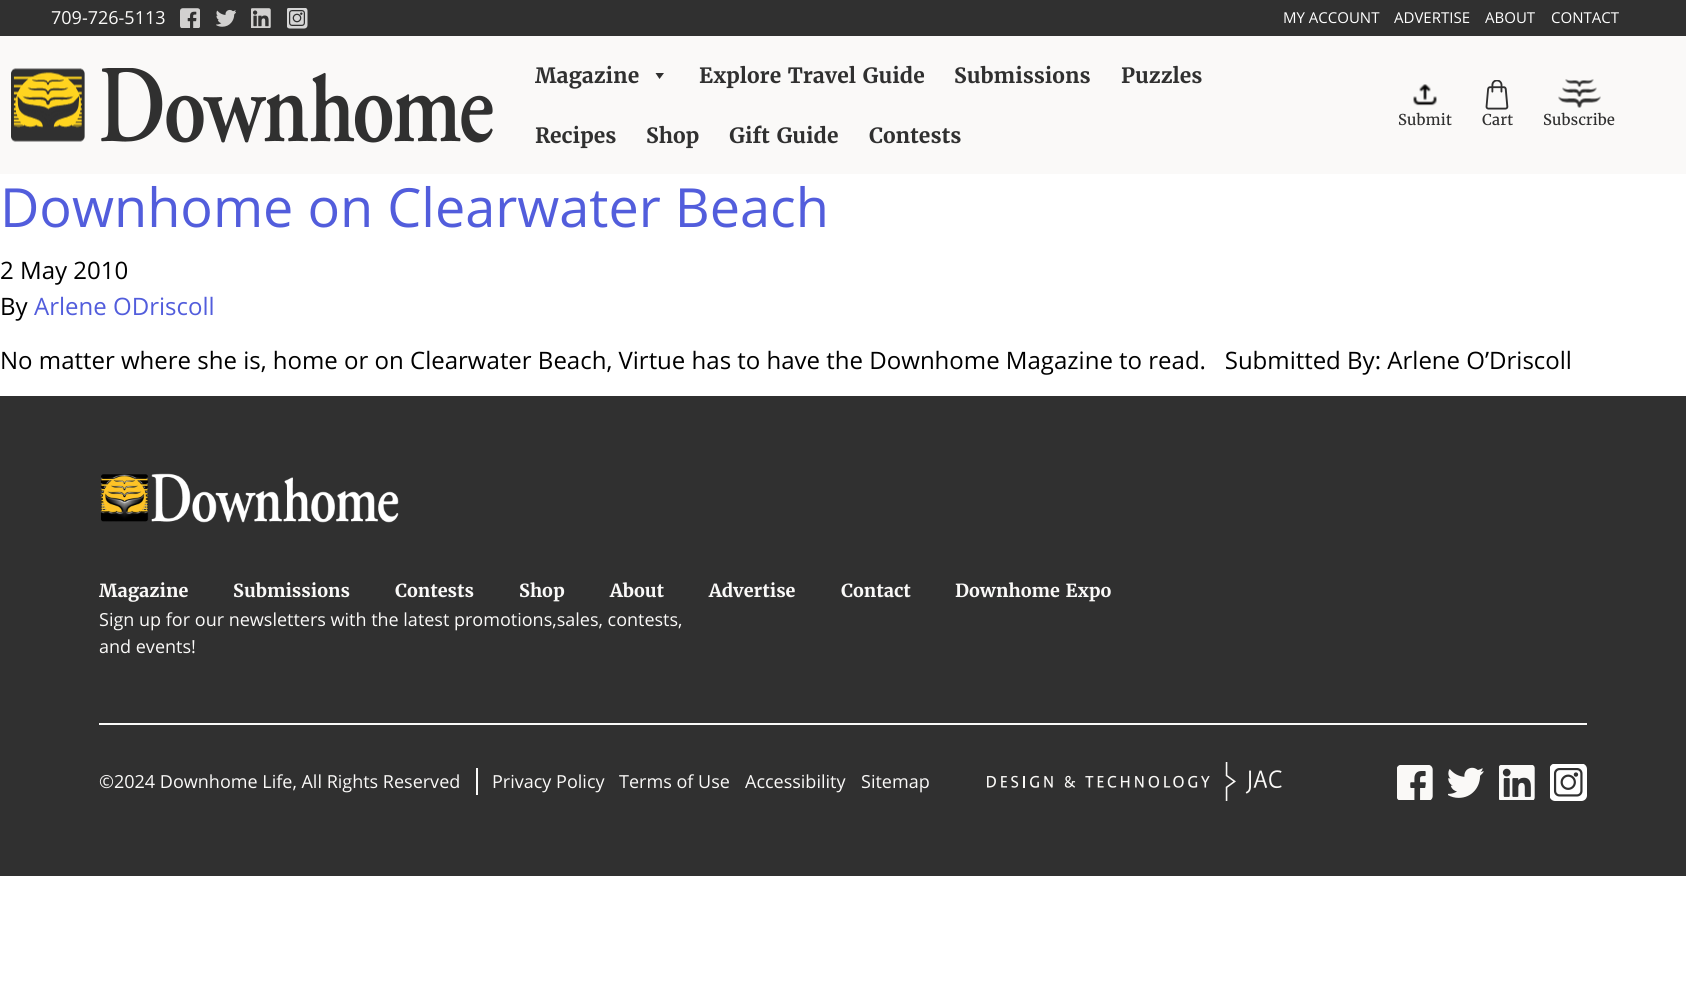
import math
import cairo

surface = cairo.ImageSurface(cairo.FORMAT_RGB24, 1686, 999)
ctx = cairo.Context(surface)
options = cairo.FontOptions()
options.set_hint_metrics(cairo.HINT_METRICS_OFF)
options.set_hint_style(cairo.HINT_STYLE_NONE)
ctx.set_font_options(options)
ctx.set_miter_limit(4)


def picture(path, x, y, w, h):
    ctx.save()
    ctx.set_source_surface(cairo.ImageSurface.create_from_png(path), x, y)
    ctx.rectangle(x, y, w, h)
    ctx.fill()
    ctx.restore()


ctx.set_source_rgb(1, 1, 1)
ctx.paint()
ctx.set_source_rgb(0.98, 0.976, 0.969)
ctx.rectangle(0, 36, 1686, 138)
ctx.fill()
ctx.set_source_rgb(0.188, 0.188, 0.188)
ctx.rectangle(0, 0, 1686, 36)
ctx.fill()
ctx.select_font_face("Open Sans")
ctx.set_font_size(18)
ctx.set_source_rgb(0.98, 0.976, 0.969)
ctx.move_to(51, 24)
ctx.show_text("709-726-5113")
picture("img1.png", 180, 8, 20, 20)
picture("img2.png", 216, 9, 20, 18)
picture("img3.png", 251, 8, 20, 20)
picture("img4.png", 287, 8, 21, 21)
ctx.set_font_size(15)
ctx.set_source_rgb(1, 1, 1)
ctx.move_to(1283, 23)
ctx.show_text("MY ACCOUNT")
ctx.move_to(1394, 23)
ctx.show_text("ADVERTISE")
ctx.move_to(1485, 23)
ctx.show_text("ABOUT")
ctx.move_to(1551, 23)
ctx.show_text("CONTACT")
picture("img5.png", 11, 68, 74, 74)
picture("img6.png", 101, 68, 392, 75)
ctx.select_font_face("Merriweather", cairo.FONT_SLANT_NORMAL, cairo.FONT_WEIGHT_BOLD)
ctx.set_font_size(21)
ctx.set_source_rgb(0.188, 0.188, 0.188)
ctx.move_to(535, 83)
ctx.show_text("Magazine")
ctx.new_path()
ctx.move_to(664, 73)
ctx.line_to(659.5, 79)
ctx.line_to(655.5, 73)
ctx.close_path()
ctx.fill()
ctx.move_to(699, 83)
ctx.show_text("Explore Travel Guide")
ctx.move_to(954, 83)
ctx.show_text("Submissions")
ctx.move_to(1121, 83)
ctx.show_text("Puzzles")
ctx.move_to(535, 143)
ctx.show_text("Recipes")
ctx.move_to(646, 143)
ctx.show_text("Shop")
ctx.move_to(729, 143)
ctx.show_text("Gift Guide")
ctx.move_to(869, 143)
ctx.show_text("Contests")
picture("img7.png", 1413, 84, 24, 22)
ctx.select_font_face("Merriweather")
ctx.set_font_size(15)
ctx.move_to(1398, 125)
ctx.show_text("Submit")
picture("img8.png", 1485, 80, 24, 30)
ctx.move_to(1482, 125)
ctx.show_text("Cart")
picture("img9.png", 1558, 79, 43, 29)
ctx.move_to(1543, 125)
ctx.show_text("Subscribe")
ctx.select_font_face("Open Sans")
ctx.set_font_size(54)
ctx.set_source_rgb(0.322, 0.365, 0.863)
ctx.move_to(0, 227)
ctx.show_text("Downhome on Clearwater Beach")
ctx.set_font_size(24)
ctx.set_source_rgb(0, 0, 0)
ctx.move_to(0, 279)
ctx.show_text("2 May 2010")
ctx.move_to(0, 315)
ctx.show_text("By")
ctx.set_source_rgb(0.322, 0.365, 0.863)
ctx.move_to(34, 315)
ctx.show_text("Arlene ODriscoll")
ctx.set_source_rgb(0, 0, 0)
ctx.move_to(0, 369)
ctx.show_text("No matter where she is, home or on Clearwater Beach, Virtue has to have the Downhome Magazine to read.   Submitted By: Arlene O’Driscoll")
ctx.set_source_rgb(0.188, 0.188, 0.188)
ctx.rectangle(0, 396, 1686, 480)
ctx.fill()
ctx.set_source_rgb(0.98, 0.976, 0.969)
ctx.rectangle(99, 723, 1488, 2)
ctx.fill()
picture("img10.png", 100, 473, 299, 50)
ctx.select_font_face("Merriweather", cairo.FONT_SLANT_NORMAL, cairo.FONT_WEIGHT_BOLD)
ctx.set_font_size(18)
ctx.move_to(99, 597)
ctx.show_text("Magazine")
ctx.move_to(233, 597)
ctx.show_text("Submissions")
ctx.move_to(395, 597)
ctx.show_text("Contests")
ctx.move_to(519, 597)
ctx.show_text("Shop")
ctx.move_to(610, 597)
ctx.show_text("About")
ctx.move_to(709, 597)
ctx.show_text("Advertise")
ctx.move_to(841, 597)
ctx.show_text("Contact")
ctx.move_to(955, 597)
ctx.show_text("Downhome Expo")
ctx.select_font_face("Open Sans")
ctx.move_to(99, 626)
ctx.show_text("Sign up for our newsletters with the latest promotions,sales, contests,")
ctx.move_to(99, 653)
ctx.show_text("and events!")
ctx.rectangle(476, 768, 2, 27)
ctx.fill()
ctx.move_to(99, 788)
ctx.show_text("©2024 Downhome Life, All Rights Reserved")
ctx.move_to(492, 788)
ctx.show_text("Privacy Policy")
ctx.move_to(619, 788)
ctx.show_text("Terms of Use")
ctx.move_to(745, 788)
ctx.show_text("Accessibility")
ctx.move_to(861, 788)
ctx.show_text("Sitemap")
picture("img11.png", 987, 762, 295, 39)
picture("img12.png", 1397, 765, 36, 35)
picture("img13.png", 1448, 767, 36, 31)
picture("img14.png", 1499, 765, 36, 35)
picture("img15.png", 1550, 764, 37, 37)
surface.write_to_png("page.png")
